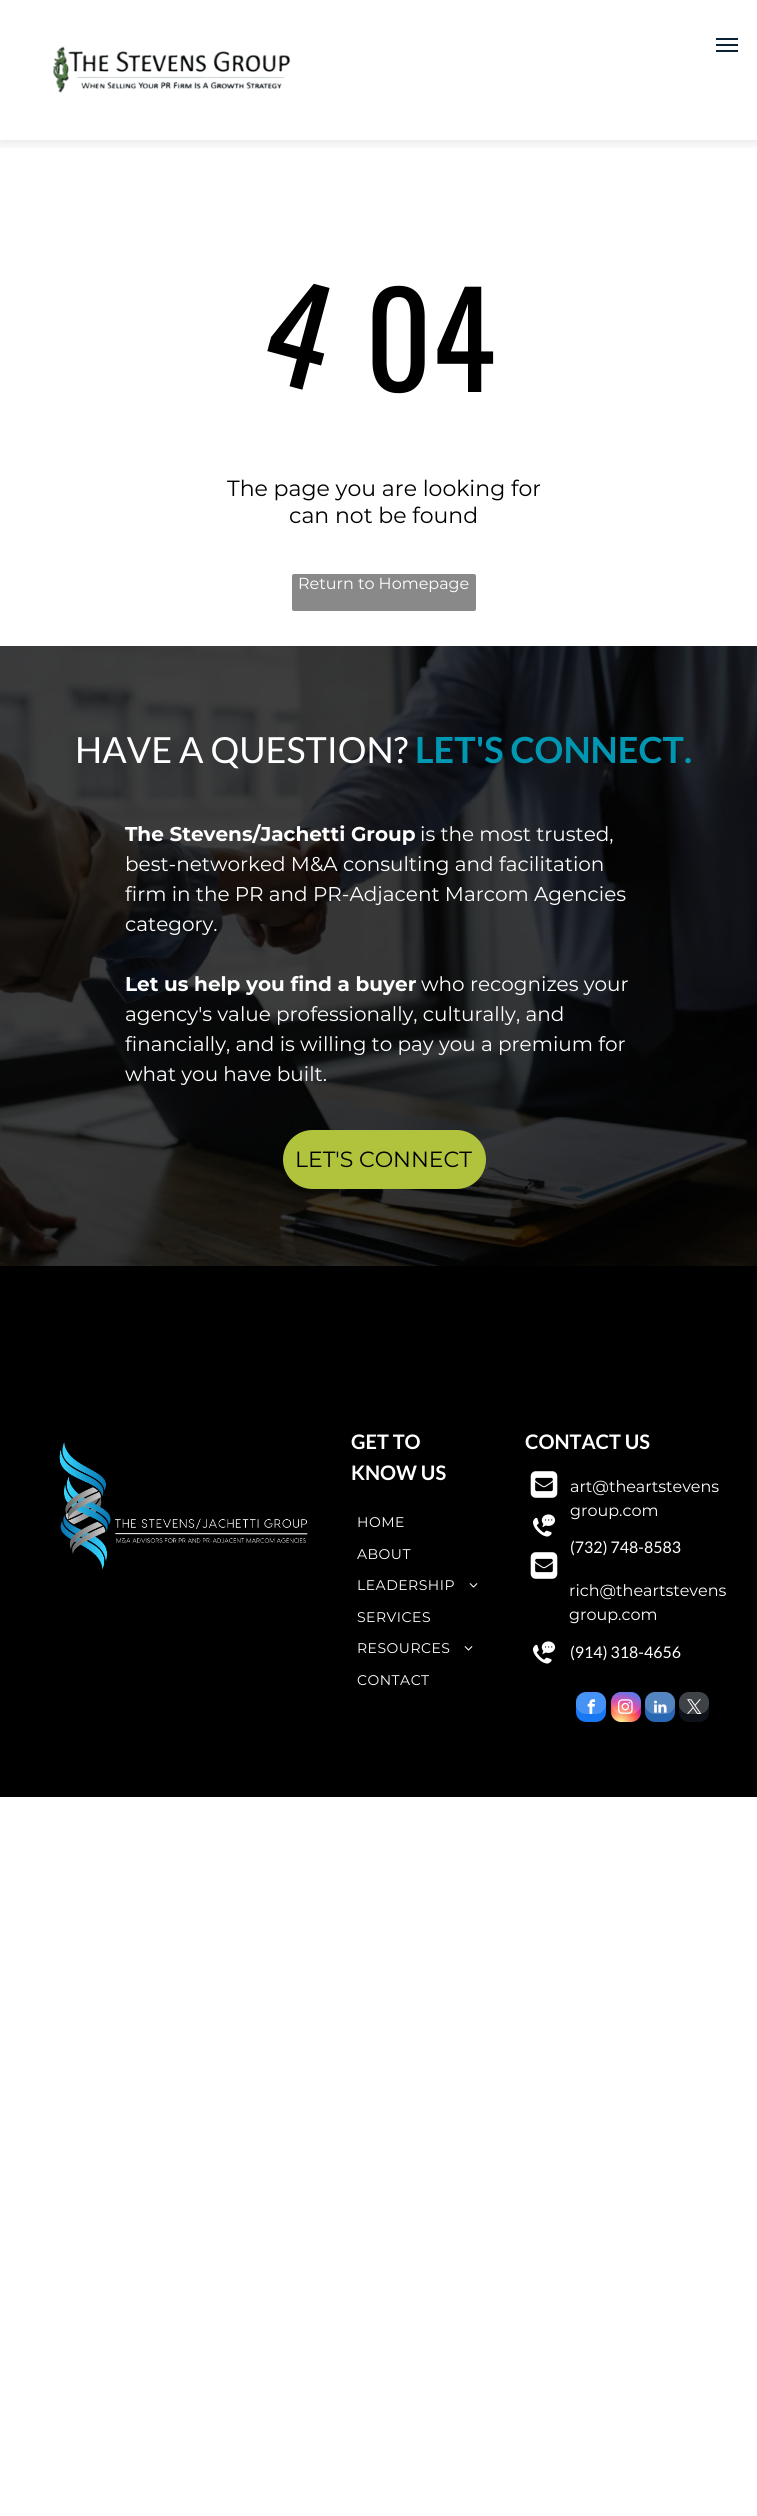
import math
import cairo

surface = cairo.ImageSurface(cairo.FORMAT_RGB24, 757, 2516)
ctx = cairo.Context(surface)
options = cairo.FontOptions()
options.set_hint_metrics(cairo.HINT_METRICS_OFF)
options.set_hint_style(cairo.HINT_STYLE_NONE)
ctx.set_font_options(options)
ctx.set_miter_limit(4)


def spaced_text(x, y, s, letter, word):
    ctx.move_to(x, y)
    for ch in s:
        ctx.show_text(ch)
        ctx.rel_move_to(letter + word * (ch == ' '), 0)


def round_rect(x, y, w, h, r):
    ctx.new_sub_path()
    for i, (u, v) in enumerate([(x + w - r, y + h - r), (x + r, y + h - r), (x + r, y + r), (x + w - r, y + r)]):
        ctx.arc(u, v, r, i * math.pi / 2, (i + 1) * math.pi / 2)
    ctx.close_path()


def shadow(x, y, w, h, r, blur, alpha):
    ctx.push_group_with_content(cairo.CONTENT_ALPHA)
    ctx.set_operator(cairo.OPERATOR_SOURCE)
    for i in range(15, -16, -2):
        e = blur * i / 6
        if min(w, h) + 2 * e > 0:
            ctx.set_source_rgba(0, 0, 0, alpha * math.erfc((i - 1) / 8.5) / 2)
            round_rect(x - e, y - e, w + 2 * e, h + 2 * e, max(0, min(r + e + blur * .6, min(w, h) / 2 + e)))
            ctx.fill()
    ctx.mask(ctx.pop_group())


def picture(path, x, y, w, h):
    ctx.save()
    ctx.set_source_surface(cairo.ImageSurface.create_from_png(path), x, y)
    ctx.rectangle(x, y, w, h)
    ctx.fill()
    ctx.restore()


ctx.set_source_rgb(1, 1, 1)
ctx.paint()
ctx.save()
ctx.rectangle(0, 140, 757, 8)
ctx.clip()
ctx.set_source_rgb(0, 0, 0)
shadow(0, 3, 757, 140, 0, 5.5, 0.1)
ctx.restore()
picture("img1.png", 52, 46, 239, 47)
ctx.set_source_rgb(0.024, 0.133, 0.204)
ctx.rectangle(716, 38, 22, 2)
ctx.fill()
ctx.rectangle(716, 44, 22, 2)
ctx.fill()
ctx.rectangle(716, 50, 22, 2)
ctx.fill()
ctx.select_font_face("Oswald")
ctx.set_font_size(130)
ctx.set_source_rgb(0, 0, 0)
ctx.save()
ctx.translate(255, 377)
ctx.rotate(15 * math.pi / 180)
ctx.move_to(0, 0)
ctx.show_text("4")
ctx.restore()
ctx.move_to(365, 392)
ctx.show_text("04")
ctx.select_font_face("Montserrat")
ctx.set_font_size(22)
ctx.move_to(227, 496)
ctx.show_text("The page you are looking for")
ctx.move_to(289, 523)
ctx.show_text("can not be found")
ctx.set_source_rgb(0.537, 0.537, 0.537)
round_rect(292, 574, 184, 37, 2)
ctx.fill()
ctx.set_font_size(16)
ctx.set_source_rgb(1, 1, 1)
ctx.move_to(298, 589)
ctx.show_text("Return to Homepage")
ctx.set_source_rgb(0, 0, 0)
ctx.rectangle(0, 1266, 757, 531)
ctx.fill()
picture("img2.png", 0, 646, 757, 620)
ctx.select_font_face("Lato")
ctx.set_font_size(36)
ctx.set_source_rgb(1, 1, 1)
ctx.move_to(75, 763)
ctx.show_text("HAVE A QUESTION?")
ctx.select_font_face("Lato", cairo.FONT_SLANT_NORMAL, cairo.FONT_WEIGHT_BOLD)
ctx.set_source_rgb(0, 0.592, 0.698)
ctx.move_to(415, 763)
ctx.show_text("LET'S CONNECT.")
ctx.select_font_face("Montserrat", cairo.FONT_SLANT_NORMAL, cairo.FONT_WEIGHT_BOLD)
ctx.set_font_size(20)
ctx.set_source_rgb(1, 1, 1)
ctx.move_to(125, 841)
ctx.show_text("The Stevens/Jachetti Group")
ctx.select_font_face("Montserrat")
ctx.move_to(420, 841)
ctx.show_text("is the most trusted,")
ctx.move_to(125, 871)
ctx.show_text("best-networked M&A consulting and facilitation")
ctx.move_to(125, 901)
ctx.show_text("firm in the PR and PR-Adjacent Marcom Agencies")
ctx.move_to(125, 931)
ctx.show_text("category.")
ctx.select_font_face("Montserrat", cairo.FONT_SLANT_NORMAL, cairo.FONT_WEIGHT_BOLD)
ctx.move_to(125, 991)
ctx.show_text("Let us help you find a buyer")
ctx.select_font_face("Montserrat")
ctx.move_to(421, 991)
ctx.show_text("who recognizes your")
ctx.move_to(125, 1021)
ctx.show_text("agency's value professionally, culturally, and")
ctx.move_to(125, 1051)
ctx.show_text("financially, and is willing to pay you a premium for")
ctx.move_to(125, 1081)
ctx.show_text("what you have built.")
ctx.set_source_rgb(0.694, 0.761, 0.235)
round_rect(283, 1130, 203, 59, 29.5)
ctx.fill()
ctx.set_font_size(22)
ctx.set_source_rgb(0, 0, 0)
ctx.move_to(295, 1167)
ctx.show_text("LET'S CONNECT")
picture("img3.png", 59, 1442, 249, 128)
ctx.select_font_face("Lato", cairo.FONT_SLANT_NORMAL, cairo.FONT_WEIGHT_BOLD)
ctx.set_font_size(20)
ctx.set_source_rgb(1, 1, 1)
ctx.move_to(351, 1449)
ctx.show_text("GET TO")
ctx.move_to(351, 1480)
ctx.show_text("KNOW US")
ctx.select_font_face("Montserrat")
ctx.set_font_size(14)
spaced_text(357, 1527, "HOME", 0.5, 0)
spaced_text(357, 1559, "ABOUT", 0.5, 0)
spaced_text(357, 1590, "LEADERSHIP", 0.5, 0)
picture("img4.png", 469, 1583, 9, 5)
spaced_text(357, 1622, "SERVICES", 0.5, 0)
spaced_text(357, 1653, "RESOURCES", 0.5, 0)
picture("img4.png", 464, 1646, 9, 5)
spaced_text(357, 1685, "CONTACT", 0.5, 0)
ctx.select_font_face("Lato", cairo.FONT_SLANT_NORMAL, cairo.FONT_WEIGHT_BOLD)
ctx.set_font_size(20)
ctx.move_to(525, 1449)
ctx.show_text("CONTACT US")
picture("img5.png", 530, 1471, 28, 27)
ctx.select_font_face("Montserrat")
ctx.set_font_size(16)
ctx.move_to(570, 1492)
ctx.show_text("art@theartstevens")
ctx.move_to(570, 1516)
ctx.show_text("group.com")
picture("img6.png", 532, 1514, 24, 23)
ctx.select_font_face("Lato")
ctx.move_to(570, 1553)
ctx.show_text("(732) 748-8583")
picture("img7.png", 530, 1552, 28, 27)
ctx.select_font_face("Montserrat")
ctx.move_to(569, 1596)
ctx.show_text("rich@theartstevens")
ctx.move_to(569, 1620)
ctx.show_text("group.com")
picture("img6.png", 532, 1641, 24, 23)
ctx.select_font_face("Lato")
ctx.move_to(570, 1658)
ctx.show_text("(914) 318-4656")
ctx.set_source_rgb(0.094, 0.467, 0.949)
round_rect(576, 1692, 30, 30, 10)
ctx.fill()
ctx.set_source_rgba(1, 1, 1, 0.2)
round_rect(576, 1692, 30, 22, 10)
ctx.fill()
picture("img8.png", 587, 1699, 8, 15)
gradient = cairo.RadialGradient(620, 1724, 0, 620, 1724, 38)
gradient.add_color_stop_rgba(0, 0.992, 0.957, 0.592, 1)
gradient.add_color_stop_rgba(0.05, 0.992, 0.957, 0.592, 1)
gradient.add_color_stop_rgba(0.45, 0.992, 0.349, 0.286, 1)
gradient.add_color_stop_rgba(0.6, 0.839, 0.141, 0.624, 1)
gradient.add_color_stop_rgba(0.9, 0.157, 0.353, 0.922, 1)
ctx.set_source(gradient)
round_rect(611, 1692, 30, 30, 10)
ctx.fill()
ctx.set_source_rgba(1, 1, 1, 0.2)
round_rect(611, 1692, 30, 22, 10)
ctx.fill()
picture("img9.png", 618, 1699, 15, 15)
ctx.set_source_rgb(0.157, 0.404, 0.698)
round_rect(645, 1692, 30, 30, 10)
ctx.fill()
ctx.set_source_rgba(1, 1, 1, 0.2)
round_rect(645, 1692, 30, 22, 10)
ctx.fill()
picture("img10.png", 654, 1700, 13, 13)
ctx.set_source_rgb(0.059, 0.078, 0.098)
round_rect(679, 1692, 30, 30, 10)
ctx.fill()
ctx.set_source_rgba(1, 1, 1, 0.2)
round_rect(679, 1692, 30, 22, 10)
ctx.fill()
picture("img11.png", 687, 1699, 15, 15)
surface.write_to_png("page.png")
